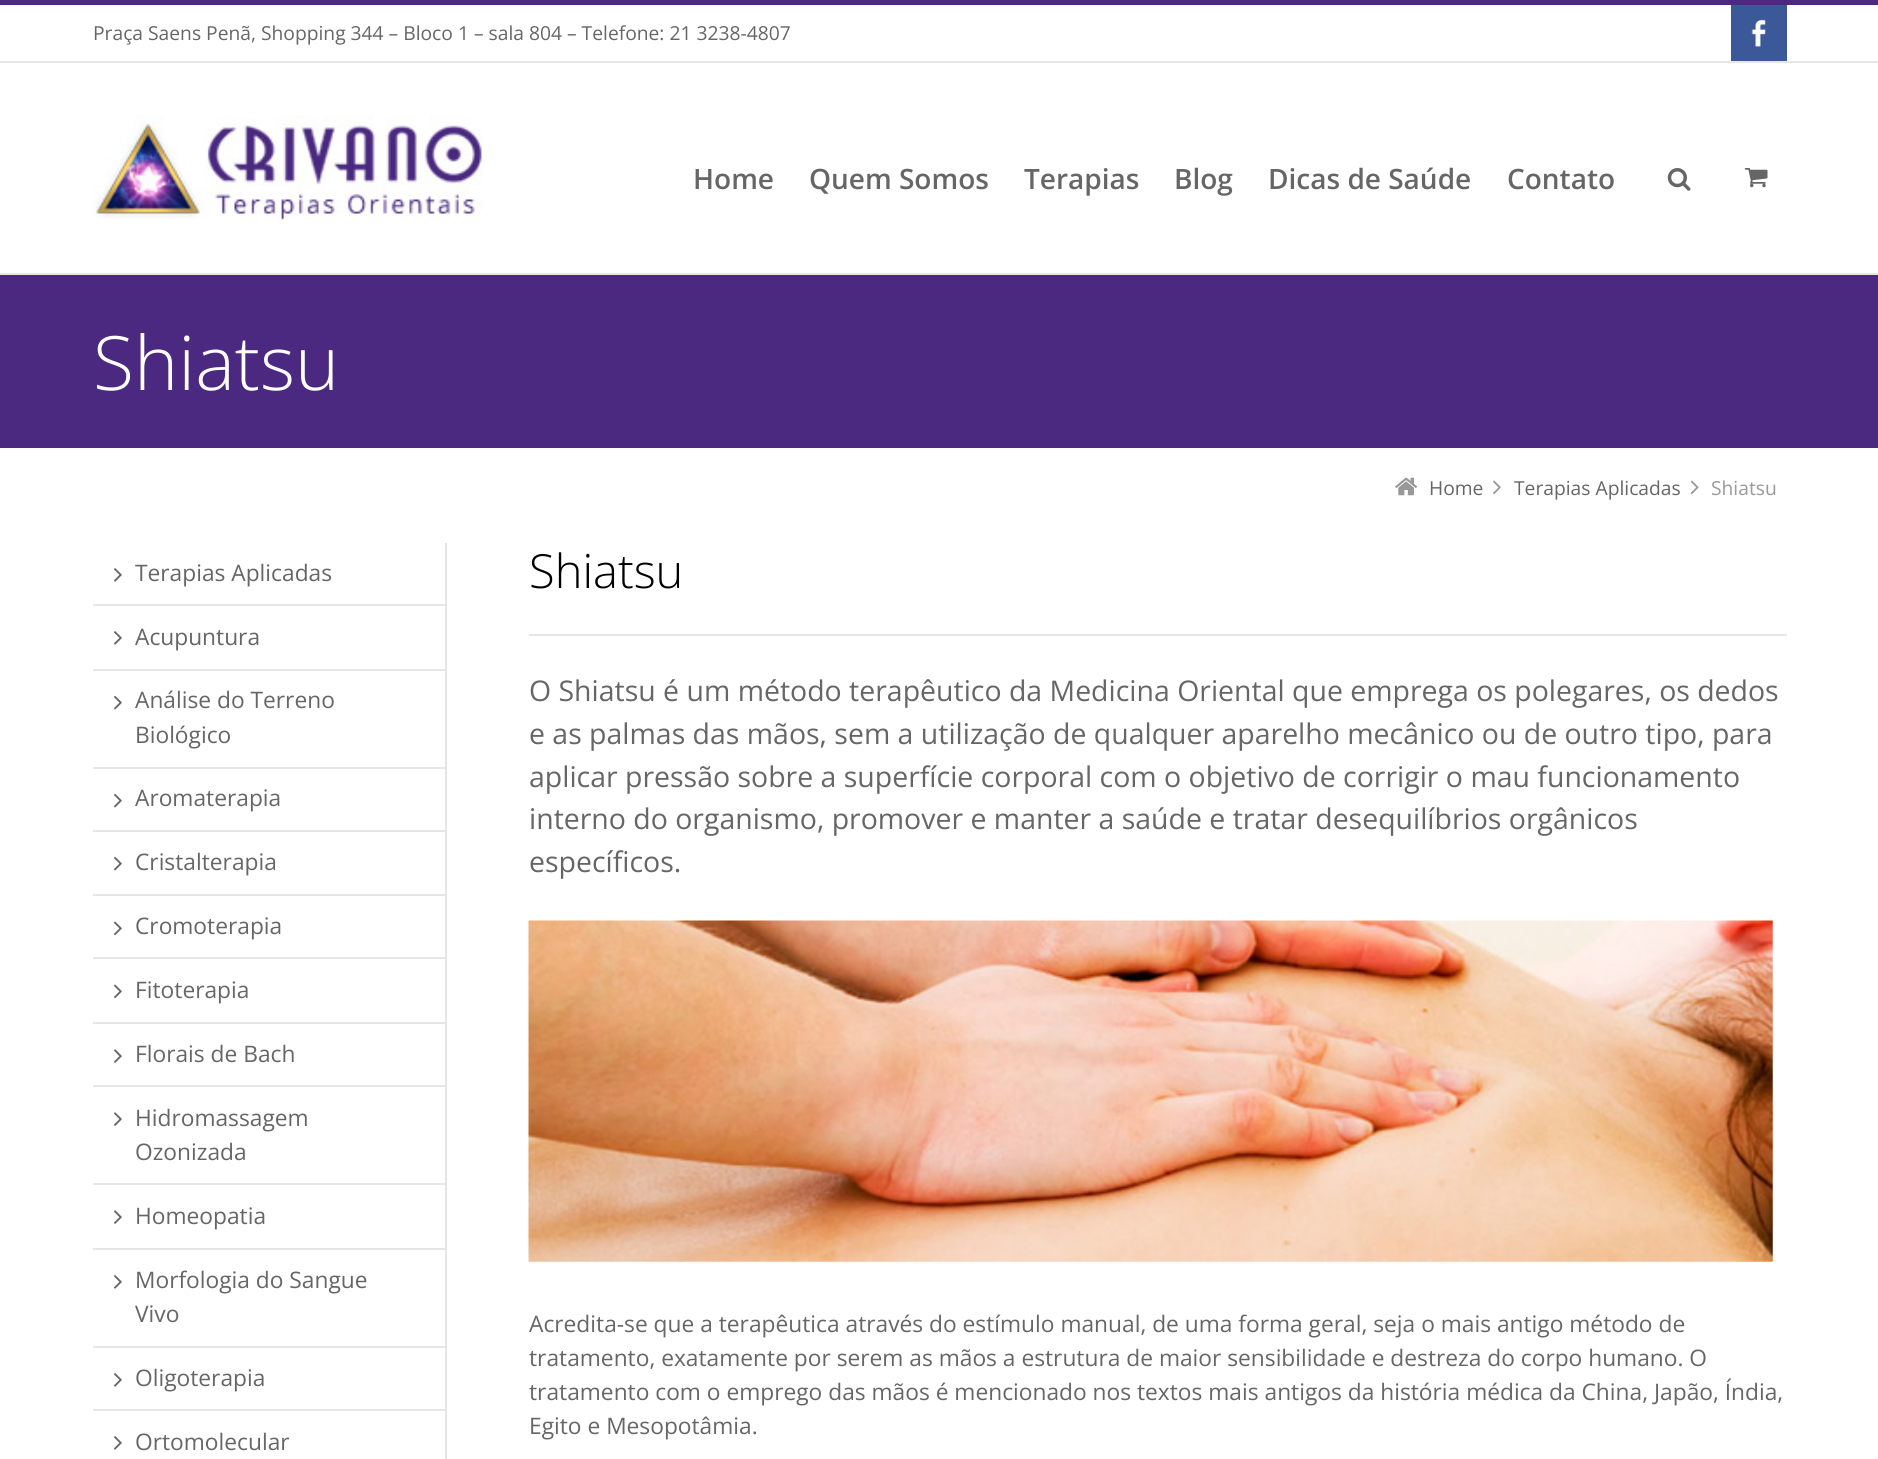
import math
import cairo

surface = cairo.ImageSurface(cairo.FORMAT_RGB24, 1878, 1459)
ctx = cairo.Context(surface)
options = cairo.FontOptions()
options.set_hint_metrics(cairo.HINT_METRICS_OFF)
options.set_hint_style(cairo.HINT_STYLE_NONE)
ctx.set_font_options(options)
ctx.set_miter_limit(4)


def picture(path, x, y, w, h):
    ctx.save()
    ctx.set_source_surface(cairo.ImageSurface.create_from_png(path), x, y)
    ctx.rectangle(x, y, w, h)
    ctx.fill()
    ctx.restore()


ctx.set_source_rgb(1, 1, 1)
ctx.paint()
ctx.set_source_rgb(0.294, 0.161, 0.502)
ctx.rectangle(0, 0, 1878, 5)
ctx.fill()
ctx.set_source_rgb(0.902, 0.902, 0.902)
ctx.rectangle(0, 61, 1878, 2)
ctx.fill()
ctx.select_font_face("Open Sans")
ctx.set_font_size(19.25)
ctx.set_source_rgb(0.4, 0.4, 0.4)
ctx.move_to(93, 40)
ctx.show_text("Praça Saens Penã, Shopping 344 – Bloco 1 – sala 804 – Telefone: 21 3238-4807")
ctx.set_source_rgb(0.231, 0.349, 0.596)
ctx.rectangle(1731, 5, 56, 56)
ctx.fill()
picture("img1.png", 1751, 19, 15, 28)
picture("img2.png", 93, 115, 390, 106)
ctx.select_font_face("Open Sans SemiBold")
ctx.set_font_size(28)
ctx.set_source_rgb(0.4, 0.4, 0.4)
ctx.move_to(693, 189)
ctx.show_text("Home")
ctx.move_to(809, 189)
ctx.show_text("Quem Somos")
ctx.move_to(1024, 189)
ctx.show_text("Terapias")
ctx.move_to(1174, 189)
ctx.show_text("Blog")
ctx.move_to(1268, 189)
ctx.show_text("Dicas de Saúde")
ctx.move_to(1507, 189)
ctx.show_text("Contato")
picture("img3.png", 1667, 168, 24, 23)
picture("img4.png", 1744, 168, 24, 20)
ctx.set_source_rgb(0.902, 0.902, 0.902)
ctx.rectangle(0, 273, 1878, 2)
ctx.fill()
ctx.set_source_rgb(0.294, 0.161, 0.502)
ctx.rectangle(0, 275, 1878, 173)
ctx.fill()
ctx.select_font_face("Open Sans Light")
ctx.set_font_size(75)
ctx.set_source_rgb(1, 1, 1)
ctx.move_to(93, 390)
ctx.show_text("Shiatsu")
picture("img5.png", 1395, 477, 23, 19)
ctx.select_font_face("Open Sans")
ctx.set_font_size(19.25)
ctx.set_source_rgb(0.4, 0.4, 0.4)
ctx.move_to(1429, 495)
ctx.show_text("Home")
picture("img6.png", 1493, 480, 8, 15)
ctx.move_to(1514, 495)
ctx.show_text("Terapias Aplicadas")
picture("img7.png", 1691, 480, 8, 15)
ctx.set_source_rgb(0.6, 0.6, 0.6)
ctx.move_to(1711, 495)
ctx.show_text("Shiatsu")
ctx.set_source_rgb(0.902, 0.902, 0.902)
ctx.rectangle(445, 543, 2, 916)
ctx.fill()
picture("img8.png", 114, 568, 8, 14)
ctx.set_font_size(22.75)
ctx.set_source_rgb(0.4, 0.4, 0.4)
ctx.move_to(135, 581)
ctx.show_text("Terapias Aplicadas")
ctx.set_source_rgb(0.902, 0.902, 0.902)
ctx.rectangle(93, 604, 352, 2)
ctx.fill()
picture("img8.png", 114, 631, 8, 14)
ctx.set_source_rgb(0.4, 0.4, 0.4)
ctx.move_to(135, 645)
ctx.show_text("Acupuntura")
ctx.set_source_rgb(0.902, 0.902, 0.902)
ctx.rectangle(93, 669, 352, 2)
ctx.fill()
picture("img9.png", 114, 695, 8, 15)
ctx.set_source_rgb(0.4, 0.4, 0.4)
ctx.move_to(135, 708)
ctx.show_text("Análise do Terreno")
ctx.move_to(135, 743)
ctx.show_text("Biológico")
ctx.set_source_rgb(0.902, 0.902, 0.902)
ctx.rectangle(93, 767, 352, 2)
ctx.fill()
picture("img9.png", 114, 793, 8, 15)
ctx.set_source_rgb(0.4, 0.4, 0.4)
ctx.move_to(135, 806)
ctx.show_text("Aromaterapia")
ctx.set_source_rgb(0.902, 0.902, 0.902)
ctx.rectangle(93, 830, 352, 2)
ctx.fill()
picture("img9.png", 114, 856, 8, 15)
ctx.set_source_rgb(0.4, 0.4, 0.4)
ctx.move_to(135, 870)
ctx.show_text("Cristalterapia")
ctx.set_source_rgb(0.902, 0.902, 0.902)
ctx.rectangle(93, 894, 352, 2)
ctx.fill()
picture("img10.png", 114, 921, 8, 15)
ctx.set_source_rgb(0.4, 0.4, 0.4)
ctx.move_to(135, 934)
ctx.show_text("Cromoterapia")
ctx.set_source_rgb(0.902, 0.902, 0.902)
ctx.rectangle(93, 957, 352, 2)
ctx.fill()
picture("img10.png", 114, 984, 8, 15)
ctx.set_source_rgb(0.4, 0.4, 0.4)
ctx.move_to(135, 998)
ctx.show_text("Fitoterapia")
ctx.set_source_rgb(0.902, 0.902, 0.902)
ctx.rectangle(93, 1022, 352, 2)
ctx.fill()
picture("img11.png", 114, 1049, 8, 14)
ctx.set_source_rgb(0.4, 0.4, 0.4)
ctx.move_to(135, 1062)
ctx.show_text("Florais de Bach")
ctx.set_source_rgb(0.902, 0.902, 0.902)
ctx.rectangle(93, 1085, 352, 2)
ctx.fill()
picture("img11.png", 114, 1112, 8, 14)
ctx.set_source_rgb(0.4, 0.4, 0.4)
ctx.move_to(135, 1126)
ctx.show_text("Hidromassagem")
ctx.move_to(135, 1160)
ctx.show_text("Ozonizada")
ctx.set_source_rgb(0.902, 0.902, 0.902)
ctx.rectangle(93, 1183, 352, 2)
ctx.fill()
picture("img11.png", 114, 1210, 8, 14)
ctx.set_source_rgb(0.4, 0.4, 0.4)
ctx.move_to(135, 1224)
ctx.show_text("Homeopatia")
ctx.set_source_rgb(0.902, 0.902, 0.902)
ctx.rectangle(93, 1248, 352, 2)
ctx.fill()
picture("img8.png", 114, 1275, 8, 14)
ctx.set_source_rgb(0.4, 0.4, 0.4)
ctx.move_to(135, 1288)
ctx.show_text("Morfologia do Sangue")
ctx.move_to(135, 1322)
ctx.show_text("Vivo")
ctx.set_source_rgb(0.902, 0.902, 0.902)
ctx.rectangle(93, 1346, 352, 2)
ctx.fill()
picture("img8.png", 114, 1373, 8, 14)
ctx.set_source_rgb(0.4, 0.4, 0.4)
ctx.move_to(135, 1386)
ctx.show_text("Oligoterapia")
ctx.set_source_rgb(0.902, 0.902, 0.902)
ctx.rectangle(93, 1409, 352, 2)
ctx.fill()
picture("img8.png", 114, 1436, 8, 14)
ctx.set_source_rgb(0.4, 0.4, 0.4)
ctx.move_to(135, 1450)
ctx.show_text("Ortomolecular")
ctx.select_font_face("Open Sans Light")
ctx.set_font_size(47)
ctx.set_source_rgb(0, 0, 0)
ctx.move_to(529, 588)
ctx.show_text("Shiatsu")
ctx.set_source_rgb(0.902, 0.902, 0.902)
ctx.rectangle(529, 634, 1258, 2)
ctx.fill()
ctx.select_font_face("Open Sans")
ctx.set_font_size(28.45)
ctx.set_source_rgb(0.4, 0.4, 0.4)
ctx.move_to(529, 701)
ctx.show_text("O Shiatsu é um método terapêutico da Medicina Oriental que emprega os polegares, os dedos")
ctx.move_to(529, 744)
ctx.show_text("e as palmas das mãos, sem a utilização de qualquer aparelho mecânico ou de outro tipo, para")
ctx.move_to(529, 787)
ctx.show_text("aplicar pressão sobre a superfície corporal com o objetivo de corrigir o mau funcionamento")
ctx.move_to(529, 829)
ctx.show_text("interno do organismo, promover e manter a saúde e tratar desequilíbrios orgânicos")
ctx.move_to(529, 872)
ctx.show_text("específicos.")
picture("img12.png", 528, 920, 1245, 342)
ctx.set_font_size(22.75)
ctx.move_to(529, 1332)
ctx.show_text("Acredita-se que a terapêutica através do estímulo manual, de uma forma geral, seja o mais antigo método de")
ctx.move_to(529, 1366)
ctx.show_text("tratamento, exatamente por serem as mãos a estrutura de maior sensibilidade e destreza do corpo humano. O")
ctx.move_to(529, 1400)
ctx.show_text("tratamento com o emprego das mãos é mencionado nos textos mais antigos da história médica da China, Japão, Índia,")
ctx.move_to(529, 1434)
ctx.show_text("Egito e Mesopotâmia.")
surface.write_to_png("page.png")
